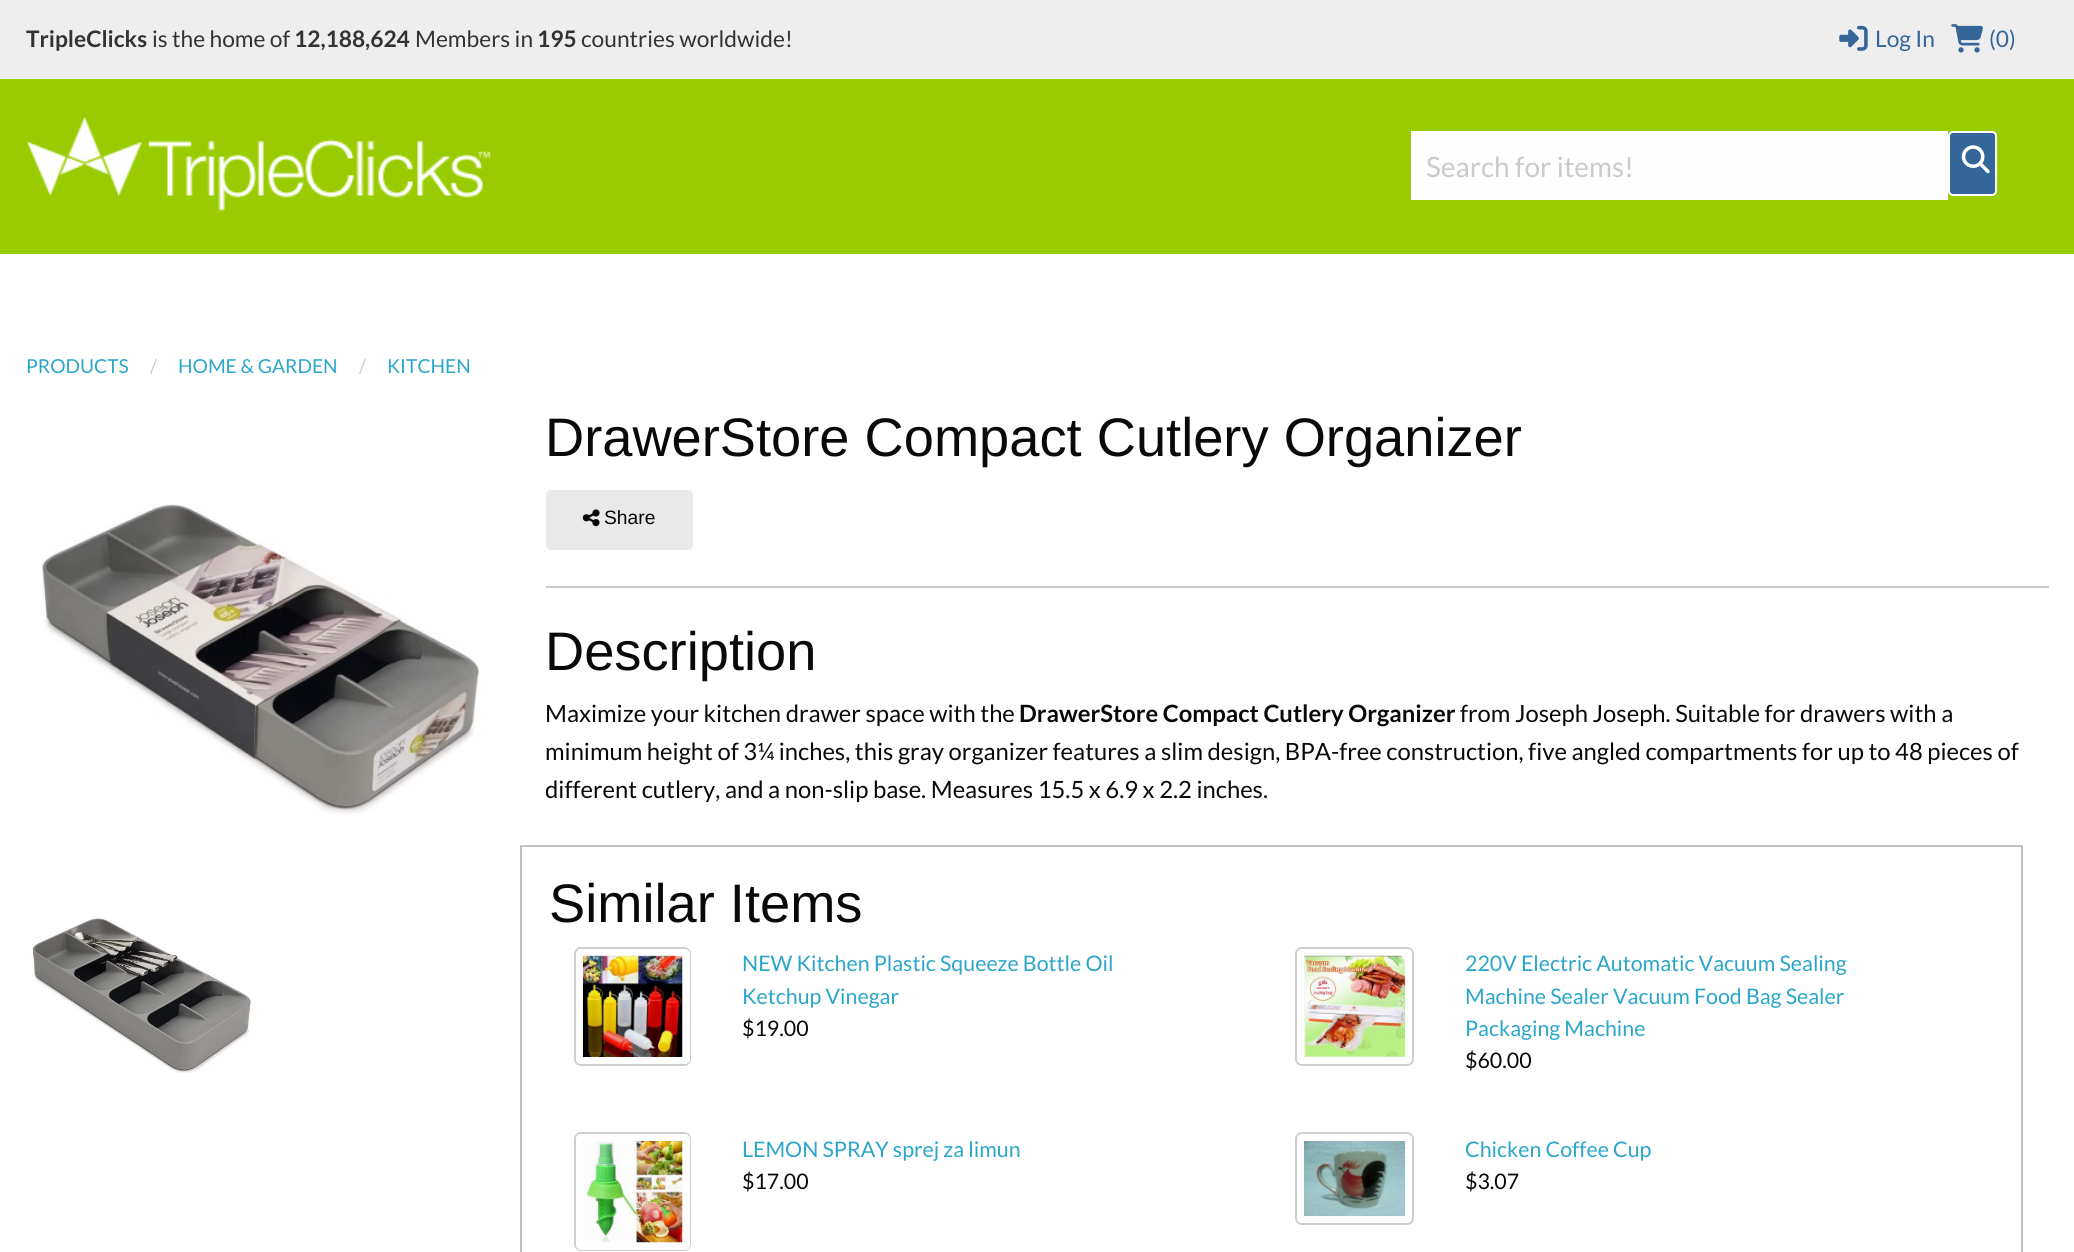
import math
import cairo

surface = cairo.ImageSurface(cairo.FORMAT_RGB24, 2074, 1252)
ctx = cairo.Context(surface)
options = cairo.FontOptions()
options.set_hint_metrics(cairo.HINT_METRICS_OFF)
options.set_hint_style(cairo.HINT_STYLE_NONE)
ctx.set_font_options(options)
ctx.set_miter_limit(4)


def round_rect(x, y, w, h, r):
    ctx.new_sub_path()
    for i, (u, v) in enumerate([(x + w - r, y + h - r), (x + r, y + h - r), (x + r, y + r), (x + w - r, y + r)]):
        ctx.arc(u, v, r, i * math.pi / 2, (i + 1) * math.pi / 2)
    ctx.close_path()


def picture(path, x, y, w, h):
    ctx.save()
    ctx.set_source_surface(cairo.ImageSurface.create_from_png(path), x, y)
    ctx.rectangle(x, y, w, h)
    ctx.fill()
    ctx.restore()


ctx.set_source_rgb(1, 1, 1)
ctx.paint()
ctx.set_source_rgb(0.6, 0.8, 0)
ctx.rectangle(0, 79, 2074, 175)
ctx.fill()
ctx.set_source_rgb(0.933, 0.933, 0.933)
ctx.rectangle(0, 0, 2074, 79)
ctx.fill()
ctx.select_font_face("Lato", cairo.FONT_SLANT_NORMAL, cairo.FONT_WEIGHT_BOLD)
ctx.set_font_size(22.75)
ctx.set_source_rgb(0.2, 0.2, 0.2)
ctx.move_to(26, 47)
ctx.show_text("TripleClicks")
ctx.select_font_face("Lato")
ctx.move_to(152, 47)
ctx.show_text("is the home of")
ctx.select_font_face("Lato", cairo.FONT_SLANT_NORMAL, cairo.FONT_WEIGHT_BOLD)
ctx.move_to(294, 47)
ctx.show_text("12,188,624")
ctx.select_font_face("Lato")
ctx.move_to(415, 47)
ctx.show_text("Members in")
ctx.select_font_face("Lato", cairo.FONT_SLANT_NORMAL, cairo.FONT_WEIGHT_BOLD)
ctx.move_to(537, 47)
ctx.show_text("195")
ctx.select_font_face("Lato")
ctx.move_to(581, 47)
ctx.show_text("countries worldwide!")
picture("img1.png", 1839, 25, 29, 26)
ctx.set_source_rgb(0.204, 0.4, 0.6)
ctx.move_to(1875, 47)
ctx.show_text("Log In")
picture("img2.png", 1951, 24, 32, 29)
ctx.move_to(1989, 47)
ctx.show_text("(0)")
picture("img3.png", 26, 116, 465, 96)
ctx.set_source_rgb(0.996, 0.996, 0.996)
ctx.rectangle(1411, 131, 537, 69)
ctx.fill()
ctx.set_font_size(28)
ctx.set_source_rgb(0.792, 0.792, 0.792)
ctx.move_to(1426, 177)
ctx.show_text("Search for items!")
ctx.set_source_rgb(0.204, 0.4, 0.6)
round_rect(1949, 132, 47, 63, 4)
ctx.fill_preserve()
ctx.set_source_rgb(1, 1, 1)
ctx.stroke()
picture("img4.png", 1961, 145, 29, 29)
ctx.set_font_size(19.25)
ctx.set_source_rgb(0.169, 0.651, 0.796)
ctx.move_to(26, 373)
ctx.show_text("PRODUCTS")
ctx.set_source_rgb(0.792, 0.792, 0.792)
ctx.move_to(150, 373)
ctx.show_text("/")
ctx.set_source_rgb(0.169, 0.651, 0.796)
ctx.move_to(178, 373)
ctx.show_text("HOME & GARDEN")
ctx.set_source_rgb(0.792, 0.792, 0.792)
ctx.move_to(359, 373)
ctx.show_text("/")
ctx.set_source_rgb(0.169, 0.651, 0.796)
ctx.move_to(387, 373)
ctx.show_text("KITCHEN")
picture("img5.png", 42, 504, 438, 311)
picture("img6.png", 32, 918, 219, 155)
ctx.select_font_face("Liberation Sans")
ctx.set_font_size(54.25)
ctx.set_source_rgb(0.039, 0.039, 0.039)
ctx.move_to(545, 456)
ctx.show_text("DrawerStore Compact Cutlery Organizer")
ctx.set_source_rgb(0.914, 0.914, 0.914)
round_rect(546, 490, 147, 60, 5)
ctx.fill()
picture("img7.png", 582, 509, 18, 18)
ctx.set_font_size(19.25)
ctx.set_source_rgb(0.039, 0.039, 0.039)
ctx.move_to(604, 524)
ctx.show_text("Share")
ctx.set_source_rgb(0.792, 0.792, 0.792)
ctx.rectangle(546, 586, 1503, 2)
ctx.fill()
ctx.set_font_size(54.25)
ctx.set_source_rgb(0.039, 0.039, 0.039)
ctx.move_to(545, 670)
ctx.show_text("Description")
ctx.select_font_face("Lato")
ctx.set_font_size(23.8)
ctx.move_to(545, 722)
ctx.show_text("Maximize your kitchen drawer space with the")
ctx.select_font_face("Lato", cairo.FONT_SLANT_NORMAL, cairo.FONT_WEIGHT_BOLD)
ctx.move_to(1019, 722)
ctx.show_text("DrawerStore Compact Cutlery Organizer")
ctx.select_font_face("Lato")
ctx.move_to(1460, 722)
ctx.show_text("from Joseph Joseph. Suitable for drawers with a")
ctx.move_to(545, 760)
ctx.show_text("minimum height of 3¼ inches, this gray organizer features a slim design, BPA-free construction, five angled compartments for up to 48 pieces of")
ctx.move_to(545, 798)
ctx.show_text("different cutlery, and a non-slip base. Measures 15.5 x 6.9 x 2.2 inches.")
ctx.rectangle(521, 846, 1501, 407)
ctx.set_source_rgb(0.761, 0.761, 0.761)
ctx.stroke()
ctx.select_font_face("Liberation Sans")
ctx.set_font_size(54.25)
ctx.set_source_rgb(0.039, 0.039, 0.039)
ctx.move_to(549, 922)
ctx.show_text("Similar Items")
round_rect(575, 948, 115, 117, 6)
ctx.set_source_rgb(0.808, 0.808, 0.808)
ctx.stroke()
round_rect(579.5, 952.5, 107, 108, 1.5)
ctx.set_source_rgb(0.996, 0.996, 0.996)
ctx.set_line_width(7)
ctx.stroke()
picture("img8.png", 582, 955, 101, 102)
ctx.select_font_face("Lato")
ctx.set_font_size(21.4)
ctx.set_source_rgb(0.169, 0.651, 0.796)
ctx.move_to(742, 971)
ctx.show_text("NEW Kitchen Plastic Squeeze Bottle Oil")
ctx.move_to(742, 1004)
ctx.show_text("Ketchup Vinegar")
ctx.set_source_rgb(0.039, 0.039, 0.039)
ctx.move_to(742, 1036)
ctx.show_text("$19.00")
round_rect(1296, 948, 117, 117, 6)
ctx.set_source_rgb(0.808, 0.808, 0.808)
ctx.set_line_width(2)
ctx.stroke()
round_rect(1300.5, 952.5, 108, 108, 1.5)
ctx.set_source_rgb(0.996, 0.996, 0.996)
ctx.set_line_width(7)
ctx.stroke()
picture("img9.png", 1304, 955, 102, 102)
ctx.set_source_rgb(0.169, 0.651, 0.796)
ctx.move_to(1465, 971)
ctx.show_text("220V Electric Automatic Vacuum Sealing")
ctx.move_to(1465, 1004)
ctx.show_text("Machine Sealer Vacuum Food Bag Sealer")
ctx.move_to(1465, 1036)
ctx.show_text("Packaging Machine")
ctx.set_source_rgb(0.039, 0.039, 0.039)
ctx.move_to(1465, 1068)
ctx.show_text("$60.00")
round_rect(575, 1133, 115, 117, 6)
ctx.set_source_rgb(0.808, 0.808, 0.808)
ctx.set_line_width(2)
ctx.stroke()
round_rect(579.5, 1137.5, 107, 109, 1.5)
ctx.set_source_rgb(0.996, 0.996, 0.996)
ctx.set_line_width(7)
ctx.stroke()
picture("img10.png", 583, 1141, 100, 102)
ctx.set_source_rgb(0.169, 0.651, 0.796)
ctx.move_to(742, 1157)
ctx.show_text("LEMON SPRAY sprej za limun")
ctx.set_source_rgb(0.039, 0.039, 0.039)
ctx.move_to(742, 1189)
ctx.show_text("$17.00")
round_rect(1296, 1133, 117, 91, 6)
ctx.set_source_rgb(0.808, 0.808, 0.808)
ctx.set_line_width(2)
ctx.stroke()
round_rect(1300.5, 1137.5, 108, 82, 1.5)
ctx.set_source_rgb(0.996, 0.996, 0.996)
ctx.set_line_width(7)
ctx.stroke()
picture("img11.png", 1303, 1141, 103, 76)
ctx.set_source_rgb(0.169, 0.651, 0.796)
ctx.move_to(1465, 1157)
ctx.show_text("Chicken Coffee Cup")
ctx.set_source_rgb(0.039, 0.039, 0.039)
ctx.move_to(1465, 1189)
ctx.show_text("$3.07")
surface.write_to_png("page.png")
